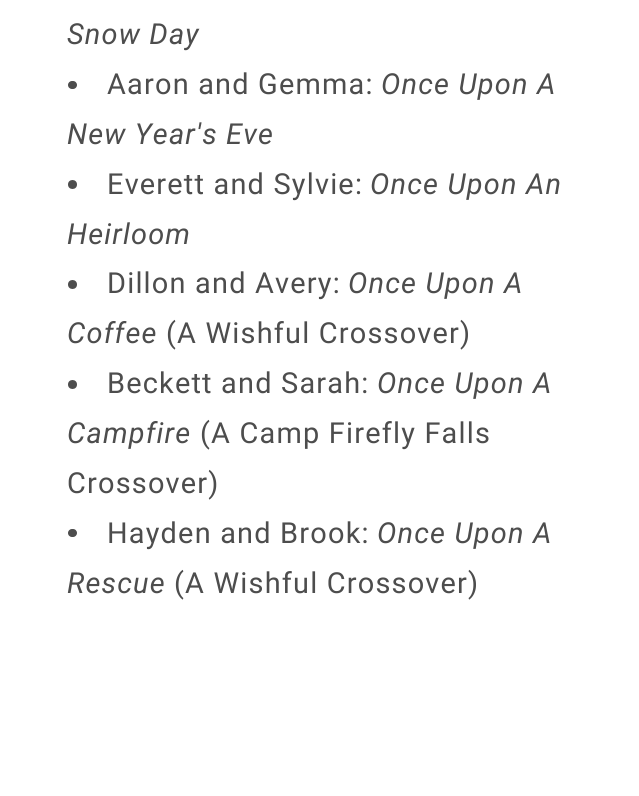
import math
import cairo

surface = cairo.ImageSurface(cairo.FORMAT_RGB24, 639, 796)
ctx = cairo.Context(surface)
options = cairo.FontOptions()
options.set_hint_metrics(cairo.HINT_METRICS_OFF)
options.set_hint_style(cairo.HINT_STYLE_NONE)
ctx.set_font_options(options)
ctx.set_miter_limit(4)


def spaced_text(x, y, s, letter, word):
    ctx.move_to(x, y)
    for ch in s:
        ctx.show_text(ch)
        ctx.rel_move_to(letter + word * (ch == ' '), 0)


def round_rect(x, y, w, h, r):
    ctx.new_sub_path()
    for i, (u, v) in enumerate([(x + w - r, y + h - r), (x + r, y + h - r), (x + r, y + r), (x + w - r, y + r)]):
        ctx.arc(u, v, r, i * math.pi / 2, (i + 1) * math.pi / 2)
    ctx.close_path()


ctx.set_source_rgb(1, 1, 1)
ctx.paint()
ctx.select_font_face("Roboto", cairo.FONT_SLANT_ITALIC)
ctx.set_font_size(28.9)
ctx.set_source_rgb(0.302, 0.302, 0.302)
spaced_text(67, 44, "Snow Day", 1.2, 0)
round_rect(68, 81, 9, 8, 4)
ctx.fill()
ctx.select_font_face("Roboto")
spaced_text(107, 94, "Aaron and Gemma:", 1.2, 0)
ctx.select_font_face("Roboto", cairo.FONT_SLANT_ITALIC)
spaced_text(381, 94, "Once Upon A", 1.2, 0)
spaced_text(67, 144, "New Year's Eve", 1.2, 0)
ctx.new_path()
ctx.arc(72.5, 184.5, 4.5, 0, 2 * math.pi)
ctx.fill()
ctx.select_font_face("Roboto")
spaced_text(107, 194, "Everett and Sylvie:", 1.2, 0)
ctx.select_font_face("Roboto", cairo.FONT_SLANT_ITALIC)
spaced_text(370, 194, "Once Upon An", 1.2, 0)
spaced_text(67, 244, "Heirloom", 1.2, 0)
ctx.new_path()
ctx.arc(72.5, 284.5, 4.5, 0, 2 * math.pi)
ctx.fill()
ctx.select_font_face("Roboto")
spaced_text(107, 293, "Dillon and Avery:", 1.2, 0)
ctx.select_font_face("Roboto", cairo.FONT_SLANT_ITALIC)
spaced_text(348, 293, "Once Upon A", 1.2, 0)
spaced_text(67, 343, "Coffee", 1.2, 0)
ctx.select_font_face("Roboto")
spaced_text(166, 343, "(A Wishful Crossover)", 1.2, 0)
ctx.new_path()
ctx.arc(72.5, 384.5, 4.5, 0, 2 * math.pi)
ctx.fill()
spaced_text(107, 393, "Beckett and Sarah:", 1.2, 0)
ctx.select_font_face("Roboto", cairo.FONT_SLANT_ITALIC)
spaced_text(377, 393, "Once Upon A", 1.2, 0)
spaced_text(67, 443, "Campfire", 1.2, 0)
ctx.select_font_face("Roboto")
spaced_text(200, 443, "(A Camp Firefly Falls", 1.2, 0)
spaced_text(67, 493, "Crossover)", 1.2, 0)
round_rect(68, 529, 9, 8, 4)
ctx.fill()
spaced_text(107, 543, "Hayden and Brook:", 1.2, 0)
ctx.select_font_face("Roboto", cairo.FONT_SLANT_ITALIC)
spaced_text(377, 543, "Once Upon A", 1.2, 0)
spaced_text(67, 593, "Rescue", 1.2, 0)
ctx.select_font_face("Roboto")
spaced_text(174, 593, "(A Wishful Crossover)", 1.2, 0)
surface.write_to_png("page.png")
